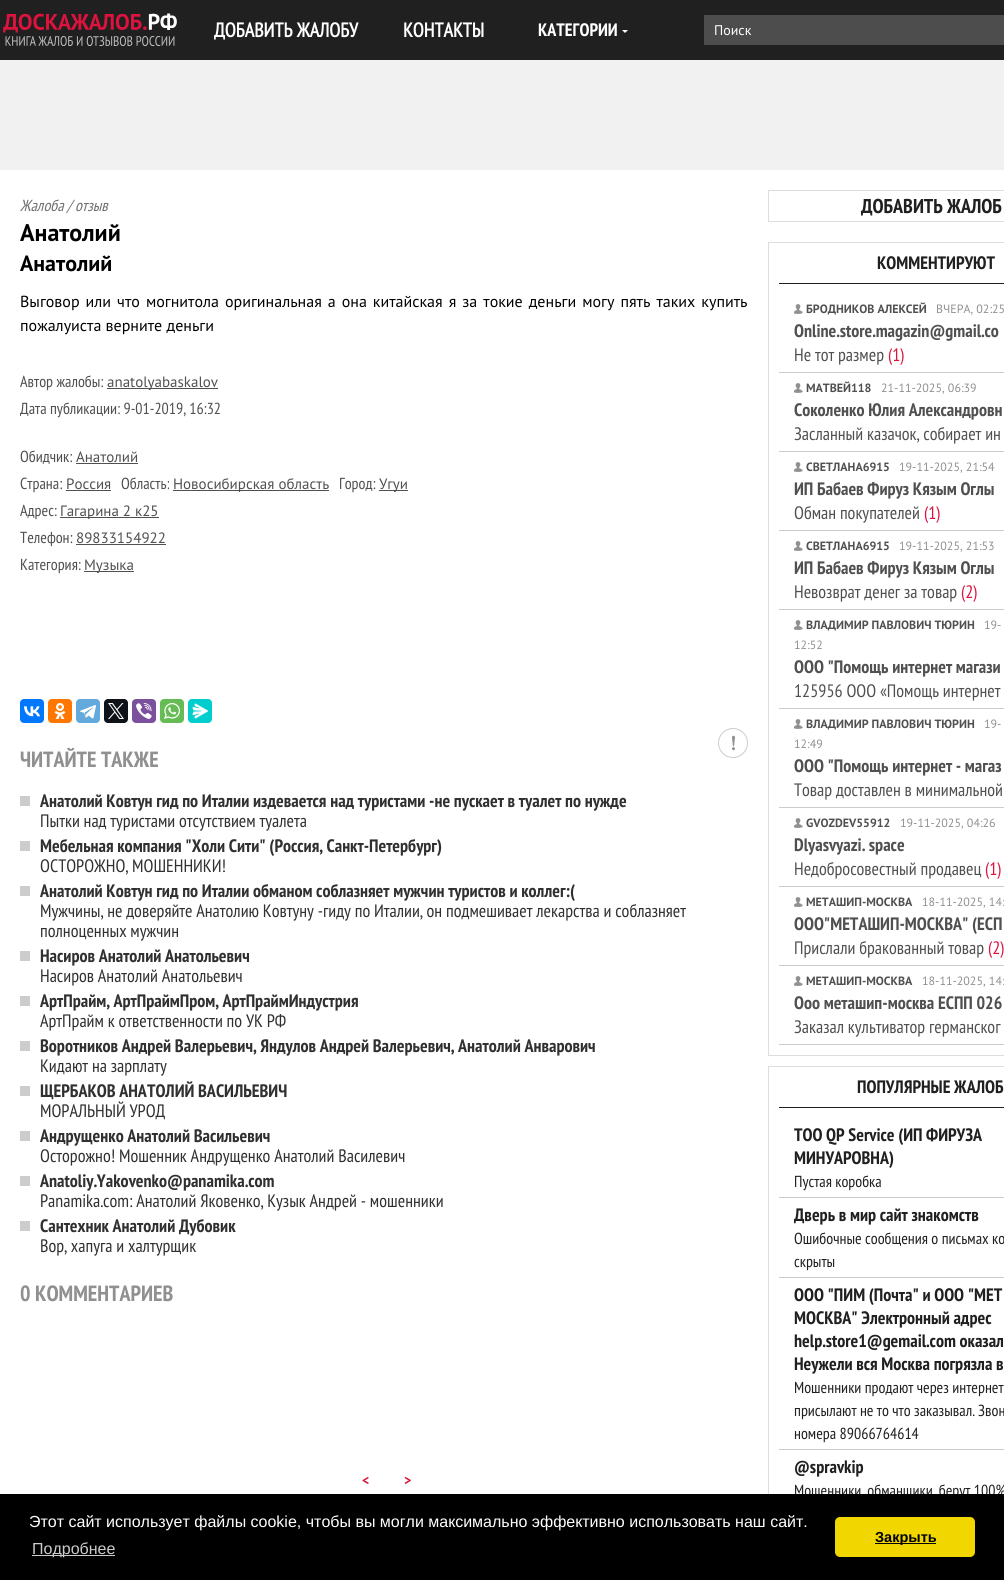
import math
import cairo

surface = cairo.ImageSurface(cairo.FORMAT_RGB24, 1004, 1580)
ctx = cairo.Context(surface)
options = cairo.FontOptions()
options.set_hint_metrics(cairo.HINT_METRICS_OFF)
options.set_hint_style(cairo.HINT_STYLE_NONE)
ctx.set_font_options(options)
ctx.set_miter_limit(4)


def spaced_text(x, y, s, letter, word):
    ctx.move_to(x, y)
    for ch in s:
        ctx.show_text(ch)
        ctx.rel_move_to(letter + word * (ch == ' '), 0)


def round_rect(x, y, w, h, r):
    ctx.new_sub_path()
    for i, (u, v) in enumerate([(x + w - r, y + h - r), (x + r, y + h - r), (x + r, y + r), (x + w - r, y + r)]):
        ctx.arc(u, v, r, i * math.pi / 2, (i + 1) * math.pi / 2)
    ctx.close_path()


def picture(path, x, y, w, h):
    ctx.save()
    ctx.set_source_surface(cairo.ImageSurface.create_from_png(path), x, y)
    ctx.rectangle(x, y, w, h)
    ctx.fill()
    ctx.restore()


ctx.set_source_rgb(0.945, 0.945, 0.945)
ctx.paint()
ctx.set_source_rgb(0.125, 0.125, 0.125)
ctx.rectangle(0, 0, 1004, 60)
ctx.fill()
picture("img1.png", 3, 13, 174, 33)
ctx.select_font_face("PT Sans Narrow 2", cairo.FONT_SLANT_NORMAL, cairo.FONT_WEIGHT_BOLD)
ctx.set_font_size(20)
ctx.set_source_rgb(1, 1, 1)
ctx.move_to(214, 37)
ctx.show_text("ДОБАВИТЬ ЖАЛОБУ")
ctx.move_to(403, 37)
ctx.show_text("КОНТАКТЫ")
ctx.select_font_face("PT Sans Narrow", cairo.FONT_SLANT_NORMAL, cairo.FONT_WEIGHT_BOLD)
ctx.set_font_size(18)
ctx.move_to(538, 36)
ctx.show_text("КАТЕГОРИИ")
ctx.new_path()
ctx.move_to(622, 30)
ctx.line_to(628, 30)
ctx.line_to(625, 33)
ctx.close_path()
ctx.fill()
ctx.set_source_rgb(0.302, 0.302, 0.302)
ctx.rectangle(704, 15, 300, 30)
ctx.fill()
ctx.select_font_face("PT Sans")
ctx.set_font_size(14)
ctx.set_source_rgb(1, 1, 1)
ctx.move_to(714, 35)
ctx.show_text("Поиск")
ctx.rectangle(0, 170, 1004, 1324)
ctx.fill()
ctx.select_font_face("PT Sans Narrow", cairo.FONT_SLANT_ITALIC)
ctx.set_font_size(16)
ctx.set_source_rgb(0.439, 0.439, 0.439)
ctx.move_to(20, 211)
ctx.show_text("Жалоба / отзыв")
ctx.select_font_face("PT Sans", cairo.FONT_SLANT_NORMAL, cairo.FONT_WEIGHT_BOLD)
ctx.set_font_size(24)
ctx.set_source_rgb(0, 0, 0)
ctx.move_to(20, 241)
ctx.show_text("Анатолий")
ctx.set_font_size(22)
ctx.move_to(20, 271)
ctx.show_text("Анатолий")
ctx.select_font_face("PT Sans")
ctx.set_font_size(16)
spaced_text(20, 307, "Выговор или что могнитола оригинальная а она китайская я за токие деньги могу пять таких купить", 0, 1.75)
ctx.move_to(20, 331)
ctx.show_text("пожалуиста верните деньги")
ctx.select_font_face("PT Sans Narrow")
ctx.set_source_rgb(0.314, 0.314, 0.314)
ctx.move_to(20, 387)
ctx.show_text("Автор жалобы:")
ctx.rectangle(107, 388, 111, 1)
ctx.fill()
ctx.select_font_face("PT Sans")
ctx.set_font_size(15)
ctx.move_to(107, 387)
ctx.show_text("anatolyabaskalov")
ctx.select_font_face("PT Sans Narrow")
ctx.set_font_size(16)
ctx.move_to(20, 414)
ctx.show_text("Дата публикации: 9-01-2019, 16:32")
ctx.move_to(20, 462)
ctx.show_text("Обидчик:")
ctx.select_font_face("PT Sans")
ctx.set_font_size(15)
ctx.move_to(76, 462)
ctx.show_text("Анатолий")
ctx.rectangle(76, 463, 62, 1)
ctx.fill()
ctx.select_font_face("PT Sans Narrow")
ctx.set_font_size(16)
ctx.move_to(20, 489)
ctx.show_text("Страна:")
ctx.select_font_face("PT Sans")
ctx.set_font_size(15)
ctx.move_to(66, 489)
ctx.show_text("Россия")
ctx.rectangle(66, 490, 45, 1)
ctx.fill()
ctx.select_font_face("PT Sans Narrow")
ctx.set_font_size(16)
ctx.move_to(121, 489)
ctx.show_text("Область:")
ctx.rectangle(173, 490, 156, 1)
ctx.fill()
ctx.select_font_face("PT Sans")
ctx.set_font_size(15)
ctx.move_to(173, 489)
ctx.show_text("Новосибирская область")
ctx.select_font_face("PT Sans Narrow")
ctx.set_font_size(16)
ctx.move_to(339, 489)
ctx.show_text("Город:")
ctx.rectangle(379, 490, 29, 1)
ctx.fill()
ctx.select_font_face("PT Sans")
ctx.set_font_size(15)
ctx.move_to(379, 489)
ctx.show_text("Угуи")
ctx.select_font_face("PT Sans Narrow")
ctx.set_font_size(16)
ctx.move_to(20, 516)
ctx.show_text("Адрес:")
ctx.rectangle(60, 517, 99, 1)
ctx.fill()
ctx.select_font_face("PT Sans")
ctx.set_font_size(15)
ctx.move_to(60, 516)
ctx.show_text("Гагарина 2 к25")
ctx.select_font_face("PT Sans Narrow")
ctx.set_font_size(16)
ctx.move_to(20, 543)
ctx.show_text("Телефон:")
ctx.select_font_face("PT Sans")
ctx.set_font_size(15)
ctx.move_to(76, 543)
ctx.show_text("89833154922")
ctx.rectangle(76, 544, 90, 1)
ctx.fill()
ctx.select_font_face("PT Sans Narrow")
ctx.set_font_size(16)
ctx.move_to(20, 570)
ctx.show_text("Категория:")
ctx.rectangle(84, 571, 50, 1)
ctx.fill()
ctx.select_font_face("PT Sans")
ctx.set_font_size(15)
ctx.move_to(84, 570)
ctx.show_text("Музыка")
ctx.set_source_rgb(0, 0.467, 1)
round_rect(20, 699, 24, 24, 4)
ctx.fill()
picture("img2.png", 24, 706, 16, 11)
ctx.set_source_rgb(1, 0.467, 0)
round_rect(48, 699, 24, 24, 4)
ctx.fill()
picture("img3.png", 54, 703, 12, 16)
ctx.set_source_rgb(0.392, 0.663, 0.863)
round_rect(76, 699, 24, 24, 4)
ctx.fill()
picture("img4.png", 80, 705, 16, 14)
ctx.set_source_rgb(0.059, 0.078, 0.098)
round_rect(104, 699, 24, 24, 4)
ctx.fill()
picture("img5.png", 108, 703, 16, 16)
ctx.set_source_rgb(0.482, 0.318, 0.616)
round_rect(132, 699, 24, 24, 4)
ctx.fill()
picture("img6.png", 136, 703, 16, 16)
ctx.set_source_rgb(0.396, 0.737, 0.329)
round_rect(160, 699, 24, 24, 4)
ctx.fill()
picture("img7.png", 164, 703, 16, 16)
ctx.set_source_rgb(0.012, 0.808, 0.808)
round_rect(188, 699, 24, 24, 4)
ctx.fill()
picture("img8.png", 192, 703, 16, 16)
picture("img9.png", 732, 735, 3, 16)
ctx.arc(733, 743, 14.5, 0, 2 * math.pi)
ctx.set_source_rgb(0.8, 0.8, 0.8)
ctx.set_line_width(1)
ctx.stroke()
ctx.select_font_face("PT Sans Narrow", cairo.FONT_SLANT_NORMAL, cairo.FONT_WEIGHT_BOLD)
ctx.set_font_size(22)
ctx.set_source_rgb(0.565, 0.565, 0.565)
ctx.move_to(20, 767)
ctx.show_text("ЧИТАЙТЕ ТАКЖЕ")
ctx.set_source_rgb(0.8, 0.8, 0.8)
ctx.rectangle(20, 796, 10, 10)
ctx.fill()
ctx.set_font_size(18)
ctx.set_source_rgb(0.188, 0.188, 0.188)
ctx.move_to(40, 807)
ctx.show_text("Анатолий Ковтун гид по Италии издевается над туристами -не пускает в туалет по нужде")
ctx.select_font_face("PT Sans Narrow")
ctx.move_to(40, 827)
ctx.show_text("Пытки над туристами отсутствием туалета")
ctx.set_source_rgb(0.8, 0.8, 0.8)
ctx.rectangle(20, 841, 10, 10)
ctx.fill()
ctx.select_font_face("PT Sans Narrow", cairo.FONT_SLANT_NORMAL, cairo.FONT_WEIGHT_BOLD)
ctx.set_source_rgb(0.188, 0.188, 0.188)
ctx.move_to(40, 852)
ctx.show_text("Мебельная компания \"Холи Сити\" (Россия, Санкт-Петербург)")
ctx.select_font_face("PT Sans Narrow")
ctx.move_to(40, 872)
ctx.show_text("ОСТОРОЖНО, МОШЕННИКИ!")
ctx.set_source_rgb(0.8, 0.8, 0.8)
ctx.rectangle(20, 886, 10, 10)
ctx.fill()
ctx.select_font_face("PT Sans Narrow", cairo.FONT_SLANT_NORMAL, cairo.FONT_WEIGHT_BOLD)
ctx.set_source_rgb(0.188, 0.188, 0.188)
ctx.move_to(40, 897)
ctx.show_text("Анатолий Ковтун гид по Италии обманом соблазняет мужчин туристов и коллег:(")
ctx.select_font_face("PT Sans Narrow")
ctx.move_to(40, 917)
ctx.show_text("Мужчины, не доверяйте Анатолию Ковтуну -гиду по Италии, он подмешивает лекарства и соблазняет")
ctx.move_to(40, 937)
ctx.show_text("полноценных мужчин")
ctx.set_source_rgb(0.8, 0.8, 0.8)
ctx.rectangle(20, 951, 10, 10)
ctx.fill()
ctx.select_font_face("PT Sans Narrow", cairo.FONT_SLANT_NORMAL, cairo.FONT_WEIGHT_BOLD)
ctx.set_source_rgb(0.188, 0.188, 0.188)
ctx.move_to(40, 962)
ctx.show_text("Насиров Анатолий Анатольевич")
ctx.select_font_face("PT Sans Narrow")
ctx.move_to(40, 982)
ctx.show_text("Насиров Анатолий Анатольевич")
ctx.set_source_rgb(0.8, 0.8, 0.8)
ctx.rectangle(20, 996, 10, 10)
ctx.fill()
ctx.select_font_face("PT Sans Narrow", cairo.FONT_SLANT_NORMAL, cairo.FONT_WEIGHT_BOLD)
ctx.set_source_rgb(0.188, 0.188, 0.188)
ctx.move_to(40, 1007)
ctx.show_text("АртПрайм, АртПраймПром, АртПраймИндустрия")
ctx.select_font_face("PT Sans Narrow")
ctx.move_to(40, 1027)
ctx.show_text("АртПрайм к ответственности по УК РФ")
ctx.set_source_rgb(0.8, 0.8, 0.8)
ctx.rectangle(20, 1041, 10, 10)
ctx.fill()
ctx.select_font_face("PT Sans Narrow", cairo.FONT_SLANT_NORMAL, cairo.FONT_WEIGHT_BOLD)
ctx.set_source_rgb(0.188, 0.188, 0.188)
ctx.move_to(40, 1052)
ctx.show_text("Воротников Андрей Валерьевич, Яндулов Андрей Валерьевич, Анатолий Анварович")
ctx.select_font_face("PT Sans Narrow")
ctx.move_to(40, 1072)
ctx.show_text("Кидают на зарплату")
ctx.set_source_rgb(0.8, 0.8, 0.8)
ctx.rectangle(20, 1086, 10, 10)
ctx.fill()
ctx.select_font_face("PT Sans Narrow", cairo.FONT_SLANT_NORMAL, cairo.FONT_WEIGHT_BOLD)
ctx.set_source_rgb(0.188, 0.188, 0.188)
ctx.move_to(40, 1097)
ctx.show_text("ЩЕРБАКОВ АНАТОЛИЙ ВАСИЛЬЕВИЧ")
ctx.select_font_face("PT Sans Narrow")
ctx.move_to(40, 1117)
ctx.show_text("МОРАЛЬНЫЙ УРОД")
ctx.set_source_rgb(0.8, 0.8, 0.8)
ctx.rectangle(20, 1131, 10, 10)
ctx.fill()
ctx.select_font_face("PT Sans Narrow", cairo.FONT_SLANT_NORMAL, cairo.FONT_WEIGHT_BOLD)
ctx.set_source_rgb(0.188, 0.188, 0.188)
ctx.move_to(40, 1142)
ctx.show_text("Андрущенко Анатолий Васильевич")
ctx.select_font_face("PT Sans Narrow")
ctx.move_to(40, 1162)
ctx.show_text("Осторожно! Мошенник Андрущенко Анатолий Василевич")
ctx.set_source_rgb(0.8, 0.8, 0.8)
ctx.rectangle(20, 1176, 10, 10)
ctx.fill()
ctx.select_font_face("PT Sans Narrow", cairo.FONT_SLANT_NORMAL, cairo.FONT_WEIGHT_BOLD)
ctx.set_source_rgb(0.188, 0.188, 0.188)
ctx.move_to(40, 1187)
ctx.show_text("Anatoliy.Yakovenko@panamika.com")
ctx.select_font_face("PT Sans Narrow")
ctx.move_to(40, 1207)
ctx.show_text("Panamika.com: Анатолий Яковенко, Кузык Андрей - мошенники")
ctx.set_source_rgb(0.8, 0.8, 0.8)
ctx.rectangle(20, 1221, 10, 10)
ctx.fill()
ctx.select_font_face("PT Sans Narrow", cairo.FONT_SLANT_NORMAL, cairo.FONT_WEIGHT_BOLD)
ctx.set_source_rgb(0.188, 0.188, 0.188)
ctx.move_to(40, 1232)
ctx.show_text("Сантехник Анатолий Дубовик")
ctx.select_font_face("PT Sans Narrow")
ctx.move_to(40, 1252)
ctx.show_text("Вор, хапуга и халтурщик")
ctx.select_font_face("PT Sans Narrow", cairo.FONT_SLANT_NORMAL, cairo.FONT_WEIGHT_BOLD)
ctx.set_font_size(22)
ctx.set_source_rgb(0.565, 0.565, 0.565)
ctx.move_to(20, 1301)
ctx.show_text("0 КОММЕНТАРИЕВ")
ctx.select_font_face("PT Sans", cairo.FONT_SLANT_NORMAL, cairo.FONT_WEIGHT_BOLD)
ctx.set_font_size(14)
ctx.set_source_rgb(0.859, 0.078, 0.239)
ctx.move_to(362, 1485)
ctx.show_text("<")
ctx.move_to(404, 1485)
ctx.show_text(">")
ctx.rectangle(768.5, 190.5, 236, 31)
ctx.set_source_rgb(0.867, 0.867, 0.867)
ctx.stroke()
ctx.select_font_face("PT Sans Narrow", cairo.FONT_SLANT_NORMAL, cairo.FONT_WEIGHT_BOLD)
ctx.set_font_size(20)
ctx.set_source_rgb(0.125, 0.125, 0.125)
ctx.move_to(861, 213)
ctx.show_text("ДОБАВИТЬ ЖАЛОБ")
ctx.rectangle(768.5, 242.5, 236, 813)
ctx.set_source_rgb(0.867, 0.867, 0.867)
ctx.stroke()
ctx.set_source_rgb(0.125, 0.125, 0.125)
ctx.rectangle(779, 283, 225, 1)
ctx.fill()
ctx.set_font_size(18)
ctx.move_to(877, 269)
ctx.show_text("КОММЕНТИРУЮТ")
ctx.set_source_rgb(0.8, 0.8, 0.8)
ctx.rectangle(779, 372, 225, 1)
ctx.fill()
picture("img10.png", 794, 304, 9, 10)
ctx.select_font_face("PT Sans", cairo.FONT_SLANT_NORMAL, cairo.FONT_WEIGHT_BOLD)
ctx.set_font_size(12)
ctx.set_source_rgb(0.314, 0.314, 0.314)
ctx.move_to(806, 313)
ctx.show_text("БРОДНИКОВ АЛЕКСЕЙ")
ctx.select_font_face("PT Sans")
ctx.set_source_rgb(0.565, 0.565, 0.565)
ctx.move_to(936, 313)
ctx.show_text("ВЧЕРА, 02:25")
ctx.select_font_face("PT Sans Narrow", cairo.FONT_SLANT_NORMAL, cairo.FONT_WEIGHT_BOLD)
ctx.set_font_size(18)
ctx.set_source_rgb(0.314, 0.314, 0.314)
ctx.move_to(794, 337)
ctx.show_text("Online.store.magazin@gmail.co")
ctx.select_font_face("PT Sans Narrow")
ctx.move_to(794, 361)
ctx.show_text("Не тот размер")
ctx.set_source_rgb(0.859, 0.078, 0.239)
ctx.move_to(888, 361)
ctx.show_text("(1)")
ctx.set_source_rgb(0.8, 0.8, 0.8)
ctx.rectangle(779, 451, 225, 1)
ctx.fill()
picture("img10.png", 794, 383, 9, 10)
ctx.select_font_face("PT Sans", cairo.FONT_SLANT_NORMAL, cairo.FONT_WEIGHT_BOLD)
ctx.set_font_size(12)
ctx.set_source_rgb(0.314, 0.314, 0.314)
ctx.move_to(806, 392)
ctx.show_text("МАТВЕЙ118")
ctx.select_font_face("PT Sans")
ctx.set_source_rgb(0.565, 0.565, 0.565)
ctx.move_to(881, 392)
ctx.show_text("21-11-2025, 06:39")
ctx.select_font_face("PT Sans Narrow", cairo.FONT_SLANT_NORMAL, cairo.FONT_WEIGHT_BOLD)
ctx.set_font_size(18)
ctx.set_source_rgb(0.314, 0.314, 0.314)
ctx.move_to(794, 416)
ctx.show_text("Соколенко Юлия Александровн")
ctx.select_font_face("PT Sans Narrow")
ctx.move_to(794, 440)
ctx.show_text("Засланный казачок, собирает ин")
ctx.set_source_rgb(0.8, 0.8, 0.8)
ctx.rectangle(779, 530, 225, 1)
ctx.fill()
picture("img10.png", 794, 462, 9, 10)
ctx.select_font_face("PT Sans", cairo.FONT_SLANT_NORMAL, cairo.FONT_WEIGHT_BOLD)
ctx.set_font_size(12)
ctx.set_source_rgb(0.314, 0.314, 0.314)
ctx.move_to(806, 471)
ctx.show_text("СВЕТЛАНА6915")
ctx.select_font_face("PT Sans")
ctx.set_source_rgb(0.565, 0.565, 0.565)
ctx.move_to(899, 471)
ctx.show_text("19-11-2025, 21:54")
ctx.select_font_face("PT Sans Narrow", cairo.FONT_SLANT_NORMAL, cairo.FONT_WEIGHT_BOLD)
ctx.set_font_size(18)
ctx.set_source_rgb(0.314, 0.314, 0.314)
ctx.move_to(794, 495)
ctx.show_text("ИП Бабаев Фируз Кязым Оглы")
ctx.select_font_face("PT Sans Narrow")
ctx.move_to(794, 519)
ctx.show_text("Обман покупателей")
ctx.set_source_rgb(0.859, 0.078, 0.239)
ctx.move_to(924, 519)
ctx.show_text("(1)")
ctx.set_source_rgb(0.8, 0.8, 0.8)
ctx.rectangle(779, 609, 225, 1)
ctx.fill()
picture("img10.png", 794, 541, 9, 10)
ctx.select_font_face("PT Sans", cairo.FONT_SLANT_NORMAL, cairo.FONT_WEIGHT_BOLD)
ctx.set_font_size(12)
ctx.set_source_rgb(0.314, 0.314, 0.314)
ctx.move_to(806, 550)
ctx.show_text("СВЕТЛАНА6915")
ctx.select_font_face("PT Sans")
ctx.set_source_rgb(0.565, 0.565, 0.565)
ctx.move_to(899, 550)
ctx.show_text("19-11-2025, 21:53")
ctx.select_font_face("PT Sans Narrow", cairo.FONT_SLANT_NORMAL, cairo.FONT_WEIGHT_BOLD)
ctx.set_font_size(18)
ctx.set_source_rgb(0.314, 0.314, 0.314)
ctx.move_to(794, 574)
ctx.show_text("ИП Бабаев Фируз Кязым Оглы")
ctx.select_font_face("PT Sans Narrow")
ctx.move_to(794, 598)
ctx.show_text("Невозврат денег за товар")
ctx.set_source_rgb(0.859, 0.078, 0.239)
ctx.move_to(961, 598)
ctx.show_text("(2)")
ctx.set_source_rgb(0.8, 0.8, 0.8)
ctx.rectangle(779, 708, 225, 1)
ctx.fill()
picture("img10.png", 794, 620, 9, 10)
ctx.select_font_face("PT Sans", cairo.FONT_SLANT_NORMAL, cairo.FONT_WEIGHT_BOLD)
ctx.set_font_size(12)
ctx.set_source_rgb(0.314, 0.314, 0.314)
ctx.move_to(806, 629)
ctx.show_text("ВЛАДИМИР ПАВЛОВИЧ ТЮРИН")
ctx.select_font_face("PT Sans")
ctx.set_source_rgb(0.565, 0.565, 0.565)
ctx.move_to(984, 629)
ctx.show_text("19-")
ctx.move_to(794, 649)
ctx.show_text("12:52")
ctx.select_font_face("PT Sans Narrow", cairo.FONT_SLANT_NORMAL, cairo.FONT_WEIGHT_BOLD)
ctx.set_font_size(18)
ctx.set_source_rgb(0.314, 0.314, 0.314)
ctx.move_to(794, 673)
ctx.show_text("ООО \"Помощь интернет магази")
ctx.select_font_face("PT Sans Narrow")
ctx.move_to(794, 697)
ctx.show_text("125956 ООО «Помощь интернет")
ctx.set_source_rgb(0.8, 0.8, 0.8)
ctx.rectangle(779, 807, 225, 1)
ctx.fill()
picture("img10.png", 794, 719, 9, 10)
ctx.select_font_face("PT Sans", cairo.FONT_SLANT_NORMAL, cairo.FONT_WEIGHT_BOLD)
ctx.set_font_size(12)
ctx.set_source_rgb(0.314, 0.314, 0.314)
ctx.move_to(806, 728)
ctx.show_text("ВЛАДИМИР ПАВЛОВИЧ ТЮРИН")
ctx.select_font_face("PT Sans")
ctx.set_source_rgb(0.565, 0.565, 0.565)
ctx.move_to(984, 728)
ctx.show_text("19-")
ctx.move_to(794, 748)
ctx.show_text("12:49")
ctx.select_font_face("PT Sans Narrow", cairo.FONT_SLANT_NORMAL, cairo.FONT_WEIGHT_BOLD)
ctx.set_font_size(18)
ctx.set_source_rgb(0.314, 0.314, 0.314)
ctx.move_to(794, 772)
ctx.show_text("ООО \"Помощь интернет - магаз")
ctx.select_font_face("PT Sans Narrow")
ctx.move_to(794, 796)
ctx.show_text("Товар доставлен в минимальной")
ctx.set_source_rgb(0.8, 0.8, 0.8)
ctx.rectangle(779, 886, 225, 1)
ctx.fill()
picture("img10.png", 794, 818, 9, 10)
ctx.select_font_face("PT Sans", cairo.FONT_SLANT_NORMAL, cairo.FONT_WEIGHT_BOLD)
ctx.set_font_size(12)
ctx.set_source_rgb(0.314, 0.314, 0.314)
ctx.move_to(806, 827)
ctx.show_text("GVOZDEV55912")
ctx.select_font_face("PT Sans")
ctx.set_source_rgb(0.565, 0.565, 0.565)
ctx.move_to(900, 827)
ctx.show_text("19-11-2025, 04:26")
ctx.select_font_face("PT Sans Narrow", cairo.FONT_SLANT_NORMAL, cairo.FONT_WEIGHT_BOLD)
ctx.set_font_size(18)
ctx.set_source_rgb(0.314, 0.314, 0.314)
ctx.move_to(794, 851)
ctx.show_text("Dlyasvyazi. space")
ctx.select_font_face("PT Sans Narrow")
ctx.move_to(794, 875)
ctx.show_text("Недобросовестный продавец")
ctx.set_source_rgb(0.859, 0.078, 0.239)
ctx.move_to(985, 875)
ctx.show_text("(1)")
ctx.set_source_rgb(0.8, 0.8, 0.8)
ctx.rectangle(779, 965, 225, 1)
ctx.fill()
picture("img10.png", 794, 897, 9, 10)
ctx.select_font_face("PT Sans", cairo.FONT_SLANT_NORMAL, cairo.FONT_WEIGHT_BOLD)
ctx.set_font_size(12)
ctx.set_source_rgb(0.314, 0.314, 0.314)
ctx.move_to(806, 906)
ctx.show_text("МЕТАШИП-МОСКВА")
ctx.select_font_face("PT Sans")
ctx.set_source_rgb(0.565, 0.565, 0.565)
ctx.move_to(922, 906)
ctx.show_text("18-11-2025, 14:")
ctx.select_font_face("PT Sans Narrow", cairo.FONT_SLANT_NORMAL, cairo.FONT_WEIGHT_BOLD)
ctx.set_font_size(18)
ctx.set_source_rgb(0.314, 0.314, 0.314)
ctx.move_to(794, 930)
ctx.show_text("ООО\"МЕТАШИП-МОСКВА\" (ЕСП")
ctx.select_font_face("PT Sans Narrow")
ctx.move_to(794, 954)
ctx.show_text("Прислали бракованный товар")
ctx.set_source_rgb(0.859, 0.078, 0.239)
ctx.move_to(988, 954)
ctx.show_text("(2)")
ctx.set_source_rgb(0.8, 0.8, 0.8)
ctx.rectangle(779, 1044, 225, 1)
ctx.fill()
picture("img10.png", 794, 976, 9, 10)
ctx.select_font_face("PT Sans", cairo.FONT_SLANT_NORMAL, cairo.FONT_WEIGHT_BOLD)
ctx.set_font_size(12)
ctx.set_source_rgb(0.314, 0.314, 0.314)
ctx.move_to(806, 985)
ctx.show_text("МЕТАШИП-МОСКВА")
ctx.select_font_face("PT Sans")
ctx.set_source_rgb(0.565, 0.565, 0.565)
ctx.move_to(922, 985)
ctx.show_text("18-11-2025, 14:")
ctx.select_font_face("PT Sans Narrow", cairo.FONT_SLANT_NORMAL, cairo.FONT_WEIGHT_BOLD)
ctx.set_font_size(18)
ctx.set_source_rgb(0.314, 0.314, 0.314)
ctx.move_to(794, 1009)
ctx.show_text("Ооо меташип-москва ЕСПП 026")
ctx.select_font_face("PT Sans Narrow")
ctx.move_to(794, 1033)
ctx.show_text("Заказал культиватор германског")
ctx.rectangle(768.5, 1066.5, 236, 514)
ctx.set_source_rgb(0.867, 0.867, 0.867)
ctx.stroke()
ctx.set_source_rgb(0.125, 0.125, 0.125)
ctx.rectangle(779, 1107, 225, 1)
ctx.fill()
ctx.select_font_face("PT Sans Narrow", cairo.FONT_SLANT_NORMAL, cairo.FONT_WEIGHT_BOLD)
ctx.move_to(857, 1093)
ctx.show_text("ПОПУЛЯРНЫЕ ЖАЛОБ")
ctx.set_source_rgb(0.8, 0.8, 0.8)
ctx.rectangle(779, 1197, 225, 1)
ctx.fill()
ctx.set_source_rgb(0.125, 0.125, 0.125)
ctx.move_to(794, 1141)
ctx.show_text("ТОО QP Service (ИП ФИРУЗА")
ctx.move_to(794, 1164)
ctx.show_text("МИНУАРОВНА)")
ctx.select_font_face("PT Sans Narrow")
ctx.set_font_size(16)
ctx.move_to(794, 1187)
ctx.show_text("Пустая коробка")
ctx.set_source_rgb(0.8, 0.8, 0.8)
ctx.rectangle(779, 1277, 225, 1)
ctx.fill()
ctx.select_font_face("PT Sans Narrow", cairo.FONT_SLANT_NORMAL, cairo.FONT_WEIGHT_BOLD)
ctx.set_font_size(18)
ctx.set_source_rgb(0.125, 0.125, 0.125)
ctx.move_to(794, 1221)
ctx.show_text("Дверь в мир сайт знакомств")
ctx.select_font_face("PT Sans Narrow")
ctx.set_font_size(16)
ctx.move_to(794, 1244)
ctx.show_text("Ошибочные сообщения о письмах ко")
ctx.move_to(794, 1267)
ctx.show_text("скрыты")
ctx.set_source_rgb(0.8, 0.8, 0.8)
ctx.rectangle(779, 1449, 225, 1)
ctx.fill()
ctx.select_font_face("PT Sans Narrow", cairo.FONT_SLANT_NORMAL, cairo.FONT_WEIGHT_BOLD)
ctx.set_font_size(18)
ctx.set_source_rgb(0.125, 0.125, 0.125)
ctx.move_to(794, 1301)
ctx.show_text("ООО \"ПИМ (Почта\" и ООО \"МЕТ")
ctx.move_to(794, 1324)
ctx.show_text("МОСКВА\" Электронный адрес")
ctx.move_to(794, 1347)
ctx.show_text("help.store1@gemail.com оказал")
ctx.move_to(794, 1370)
ctx.show_text("Неужели вся Москва погрязла в")
ctx.select_font_face("PT Sans Narrow")
ctx.set_font_size(16)
ctx.move_to(794, 1393)
ctx.show_text("Мошенники продают через интернет")
ctx.move_to(794, 1416)
ctx.show_text("присылают не то что заказывал. Звон")
ctx.move_to(794, 1439)
ctx.show_text("номера 89066764614")
ctx.select_font_face("PT Sans Narrow", cairo.FONT_SLANT_NORMAL, cairo.FONT_WEIGHT_BOLD)
ctx.set_font_size(18)
ctx.move_to(794, 1473)
ctx.show_text("@spravkip")
ctx.select_font_face("PT Sans Narrow")
ctx.set_font_size(16)
ctx.move_to(794, 1496)
ctx.show_text("Мошенники, обманщики, берут 100%")
ctx.set_source_rgb(0, 0, 0)
ctx.rectangle(0, 1494, 1004, 86)
ctx.fill()
ctx.select_font_face("Liberation Sans")
ctx.set_source_rgb(1, 1, 1)
ctx.move_to(29, 1527)
ctx.show_text("Этот сайт использует файлы cookie, чтобы вы могли максимально эффективно использовать наш сайт.")
ctx.set_source_rgb(0.8, 0.8, 0.8)
ctx.rectangle(32, 1555, 83, 1)
ctx.fill()
ctx.move_to(32, 1554)
ctx.show_text("Подробнее")
ctx.set_source_rgb(0.945, 0.839, 0)
round_rect(835, 1517, 140, 40, 5)
ctx.fill()
ctx.set_source_rgb(0, 0, 0)
ctx.rectangle(875, 1543, 61, 1)
ctx.fill()
ctx.select_font_face("Liberation Sans", cairo.FONT_SLANT_NORMAL, cairo.FONT_WEIGHT_BOLD)
ctx.set_font_size(14.5)
ctx.move_to(875, 1542)
ctx.show_text("Закрыть")
surface.write_to_png("page.png")
